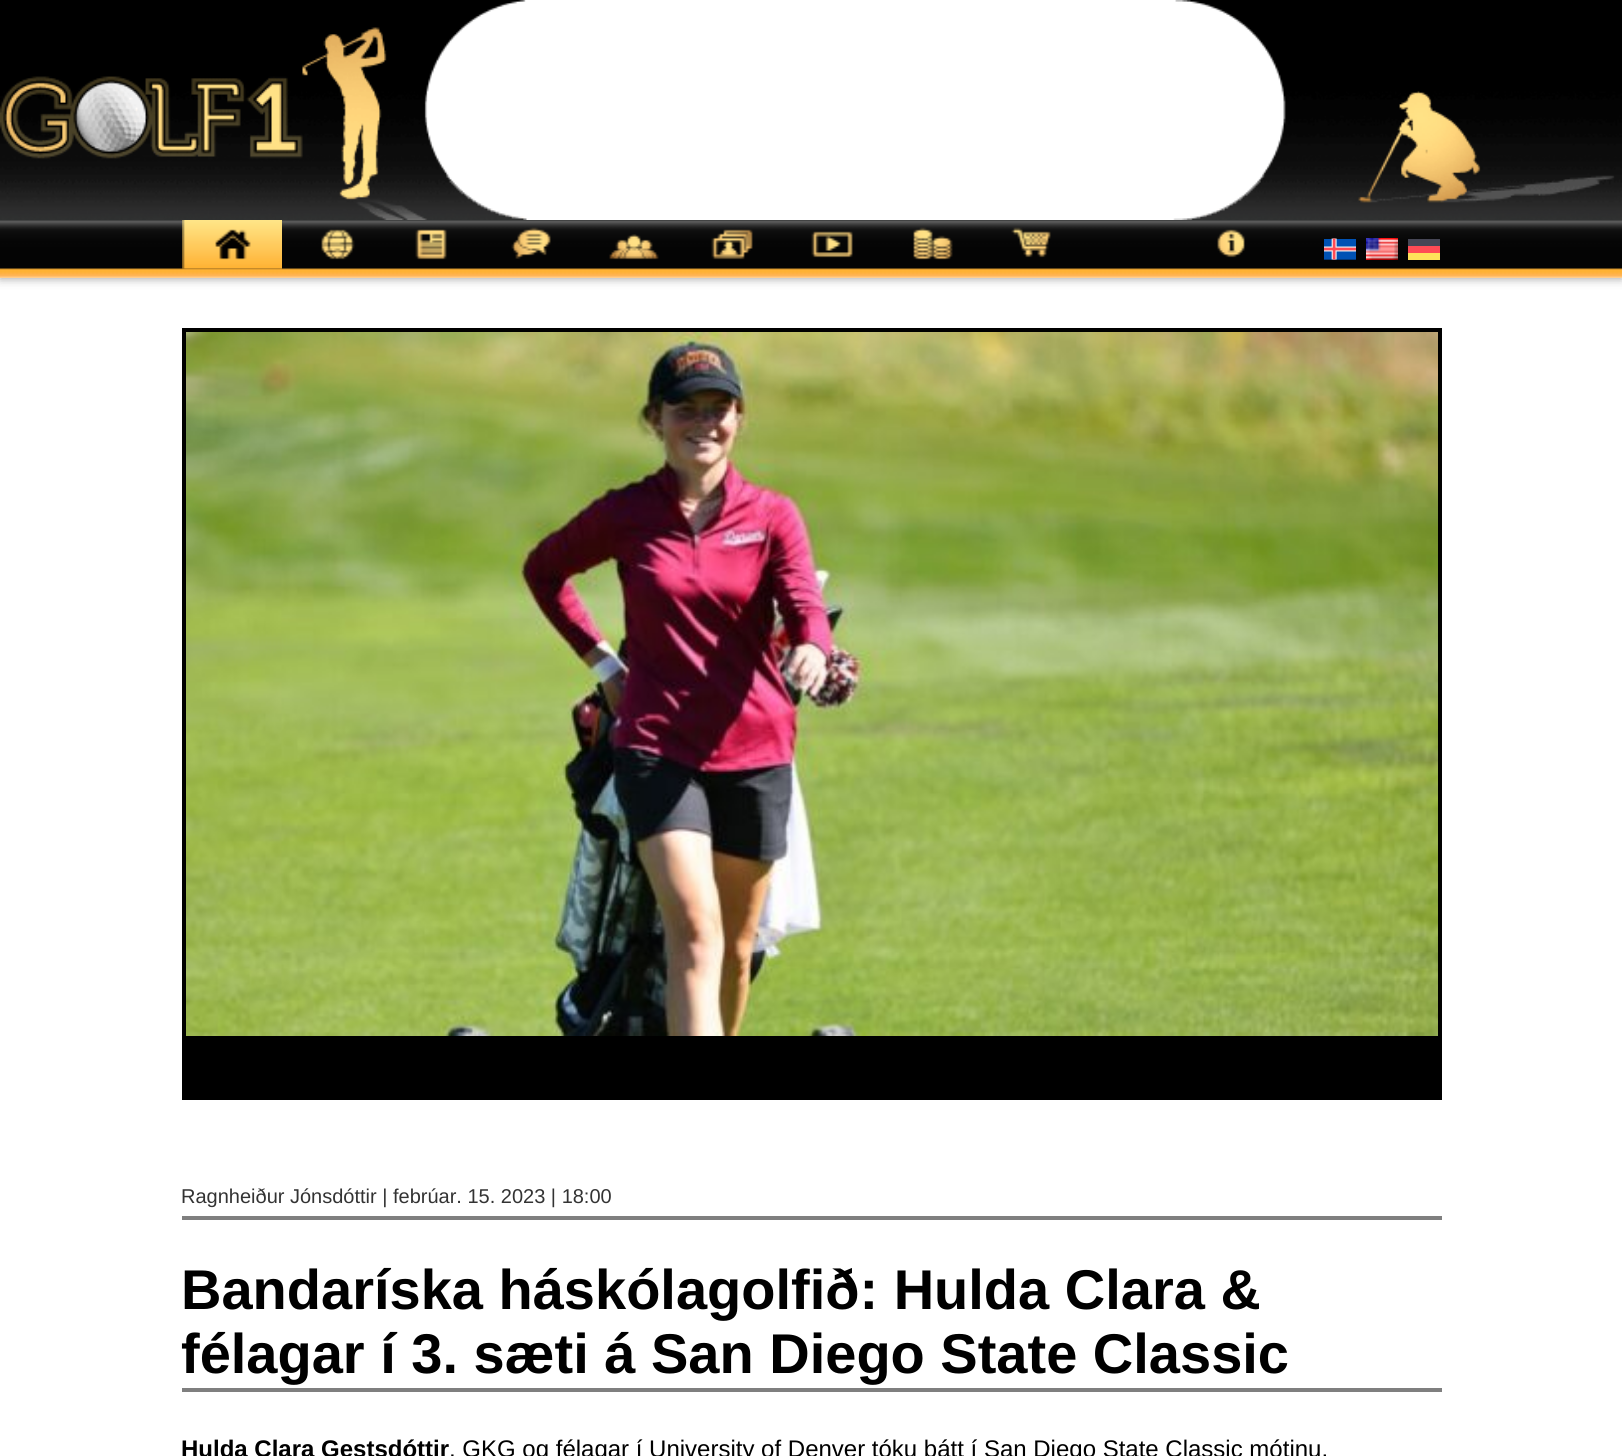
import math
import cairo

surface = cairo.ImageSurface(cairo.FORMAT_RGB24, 1622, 1456)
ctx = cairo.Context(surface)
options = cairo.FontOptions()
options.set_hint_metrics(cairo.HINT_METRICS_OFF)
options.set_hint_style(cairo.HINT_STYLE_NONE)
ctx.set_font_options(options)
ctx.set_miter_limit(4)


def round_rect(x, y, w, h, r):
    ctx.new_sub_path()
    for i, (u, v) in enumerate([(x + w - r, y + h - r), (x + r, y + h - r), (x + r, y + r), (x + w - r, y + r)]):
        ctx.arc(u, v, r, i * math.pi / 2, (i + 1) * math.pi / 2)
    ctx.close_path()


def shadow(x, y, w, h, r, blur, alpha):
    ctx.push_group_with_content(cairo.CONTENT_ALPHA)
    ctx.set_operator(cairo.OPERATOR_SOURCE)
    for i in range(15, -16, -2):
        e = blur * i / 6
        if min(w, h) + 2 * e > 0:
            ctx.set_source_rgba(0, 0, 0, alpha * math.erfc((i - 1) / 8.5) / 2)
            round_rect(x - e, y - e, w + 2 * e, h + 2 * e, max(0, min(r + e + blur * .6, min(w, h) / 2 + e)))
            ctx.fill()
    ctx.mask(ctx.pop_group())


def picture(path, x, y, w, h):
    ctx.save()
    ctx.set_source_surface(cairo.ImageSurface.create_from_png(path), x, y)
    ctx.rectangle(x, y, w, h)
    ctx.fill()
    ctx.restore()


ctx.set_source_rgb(1, 1, 1)
ctx.paint()
ctx.set_source_rgb(0.6, 0.6, 0.6)
shadow(0, 0, 1622, 278, 0, 5, 1)
picture("img1.png", 0, 220, 1622, 58)
picture("img2.png", 0, 0, 1622, 220)
picture("img3.png", 182, 220, 100, 50)
picture("img4.png", 321, 229, 34, 31)
picture("img5.png", 415, 229, 32, 31)
picture("img6.png", 511, 227, 40, 32)
picture("img7.png", 609, 234, 50, 26)
picture("img8.png", 711, 229, 42, 31)
picture("img9.png", 811, 231, 42, 27)
picture("img10.png", 913, 227, 40, 33)
picture("img11.png", 1011, 227, 40, 31)
picture("img12.png", 1217, 229, 28, 29)
picture("img13.png", 1324, 238, 32, 22)
picture("img14.png", 1366, 238, 32, 22)
ctx.set_source_rgb(0.275, 0.275, 0.333)
ctx.rectangle(1408, 239, 32, 7)
ctx.fill()
ctx.set_source_rgb(1, 0.294, 0.333)
ctx.rectangle(1408, 246, 32, 7)
ctx.fill()
ctx.set_source_rgb(1, 0.882, 0.353)
ctx.rectangle(1408, 253, 32, 7)
ctx.fill()
ctx.set_source_rgb(0, 0, 0)
ctx.rectangle(182, 328, 1260, 772)
ctx.fill()
picture("img15.png", 186, 332, 1252, 704)
ctx.set_source_rgb(0.498, 0.498, 0.498)
ctx.rectangle(182, 1216, 1260, 4)
ctx.fill()
ctx.select_font_face("Liberation Sans")
ctx.set_font_size(20)
ctx.set_source_rgb(0.2, 0.2, 0.2)
ctx.move_to(181, 1203)
ctx.show_text("Ragnheiður Jónsdóttir | febrúar. 15. 2023 | 18:00")
ctx.set_source_rgb(0.498, 0.498, 0.498)
ctx.rectangle(182, 1388, 1260, 4)
ctx.fill()
ctx.select_font_face("Liberation Sans", cairo.FONT_SLANT_NORMAL, cairo.FONT_WEIGHT_BOLD)
ctx.set_font_size(56)
ctx.set_source_rgb(0, 0, 0)
ctx.move_to(181, 1309)
ctx.show_text("Bandaríska háskólagolfið: Hulda Clara &")
ctx.move_to(181, 1373)
ctx.show_text("félagar í 3. sæti á San Diego State Classic")
ctx.set_font_size(24)
ctx.move_to(181, 1457)
ctx.show_text("Hulda Clara Gestsdóttir")
ctx.select_font_face("Liberation Sans")
ctx.move_to(449, 1457)
ctx.show_text(", GKG og félagar í University of Denver tóku þátt í San Diego State Classic mótinu.")
surface.write_to_png("page.png")
